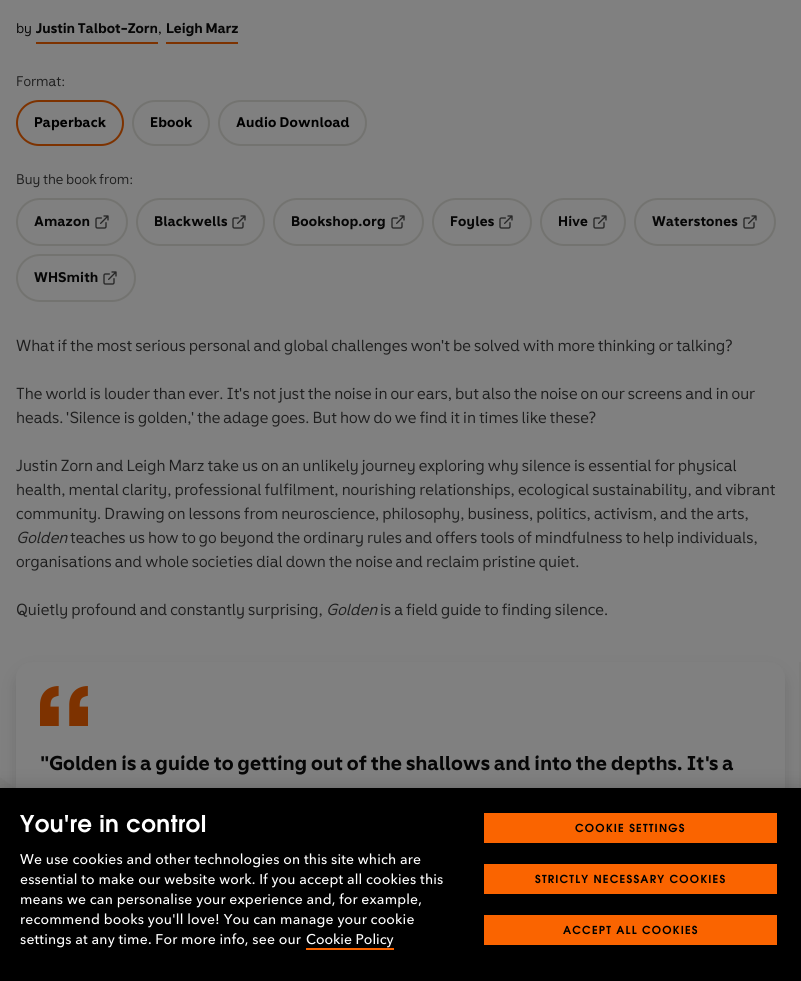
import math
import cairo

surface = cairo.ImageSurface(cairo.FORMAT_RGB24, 801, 981)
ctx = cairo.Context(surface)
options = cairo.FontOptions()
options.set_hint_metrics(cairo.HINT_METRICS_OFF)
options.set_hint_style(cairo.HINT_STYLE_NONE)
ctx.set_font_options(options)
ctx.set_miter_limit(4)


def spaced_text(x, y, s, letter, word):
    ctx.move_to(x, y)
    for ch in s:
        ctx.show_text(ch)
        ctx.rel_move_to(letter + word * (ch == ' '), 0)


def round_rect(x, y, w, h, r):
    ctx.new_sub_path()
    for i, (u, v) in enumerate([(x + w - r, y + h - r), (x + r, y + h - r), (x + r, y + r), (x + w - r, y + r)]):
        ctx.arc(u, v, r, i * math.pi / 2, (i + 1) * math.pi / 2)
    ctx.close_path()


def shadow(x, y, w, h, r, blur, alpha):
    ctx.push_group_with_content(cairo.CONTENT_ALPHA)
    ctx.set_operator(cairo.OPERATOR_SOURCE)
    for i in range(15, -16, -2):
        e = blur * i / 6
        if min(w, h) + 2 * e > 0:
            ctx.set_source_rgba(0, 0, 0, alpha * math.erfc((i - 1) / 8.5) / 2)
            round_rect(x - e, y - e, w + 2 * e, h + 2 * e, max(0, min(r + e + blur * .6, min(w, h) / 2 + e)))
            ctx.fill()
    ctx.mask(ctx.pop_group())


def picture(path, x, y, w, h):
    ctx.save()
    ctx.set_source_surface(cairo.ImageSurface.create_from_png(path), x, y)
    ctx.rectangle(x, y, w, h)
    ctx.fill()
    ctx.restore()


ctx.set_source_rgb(0.502, 0.502, 0.502)
ctx.paint()
ctx.select_font_face("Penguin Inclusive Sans")
ctx.set_font_size(14)
ctx.set_source_rgb(0.024, 0.024, 0.024)
ctx.move_to(16, 33)
ctx.show_text("by")
ctx.set_source_rgb(0.49, 0.196, 0)
ctx.rectangle(36, 42, 122, 2)
ctx.fill()
ctx.select_font_face("Penguin Inclusive Sans", cairo.FONT_SLANT_NORMAL, cairo.FONT_WEIGHT_BOLD)
ctx.set_source_rgb(0.024, 0.024, 0.024)
ctx.move_to(36, 33)
ctx.show_text("Justin Talbot-Zorn")
ctx.select_font_face("Penguin Inclusive Sans")
ctx.set_source_rgb(0, 0, 0)
ctx.move_to(158, 33)
ctx.show_text(",")
ctx.set_source_rgb(0.49, 0.196, 0)
ctx.rectangle(166, 42, 72, 2)
ctx.fill()
ctx.select_font_face("Penguin Inclusive Sans", cairo.FONT_SLANT_NORMAL, cairo.FONT_WEIGHT_BOLD)
ctx.set_source_rgb(0.024, 0.024, 0.024)
ctx.move_to(166, 33)
ctx.show_text("Leigh Marz")
ctx.select_font_face("Penguin Inclusive Sans")
ctx.set_source_rgb(0.118, 0.118, 0.118)
ctx.move_to(16, 86)
ctx.show_text("Format:")
round_rect(17, 101, 106, 44, 22)
ctx.set_source_rgb(0.49, 0.196, 0)
ctx.stroke()
ctx.select_font_face("Penguin Inclusive Sans", cairo.FONT_SLANT_NORMAL, cairo.FONT_WEIGHT_BOLD)
ctx.set_source_rgb(0, 0, 0)
spaced_text(34, 127, "Paperback", 0.2, 0)
round_rect(133, 101, 76, 44, 22)
ctx.set_source_rgb(0.451, 0.451, 0.439)
ctx.stroke()
ctx.set_source_rgb(0, 0, 0)
spaced_text(150, 127, "Ebook", 0.2, 0)
round_rect(219, 101, 147, 44, 22)
ctx.set_source_rgb(0.451, 0.451, 0.439)
ctx.stroke()
ctx.set_source_rgb(0, 0, 0)
spaced_text(236, 127, "Audio Download", 0.2, 0)
ctx.select_font_face("Penguin Inclusive Sans")
ctx.set_source_rgb(0.118, 0.118, 0.118)
ctx.move_to(16, 184)
ctx.show_text("Buy the book from:")
round_rect(17, 199, 110, 46, 23)
ctx.set_source_rgb(0.451, 0.451, 0.439)
ctx.stroke()
ctx.select_font_face("Penguin Inclusive Sans", cairo.FONT_SLANT_NORMAL, cairo.FONT_WEIGHT_BOLD)
ctx.set_source_rgb(0.024, 0.024, 0.024)
spaced_text(34, 226, "Amazon", 0.2, 0)
picture("img1.png", 95, 215, 14, 14)
round_rect(137, 199, 127, 46, 23)
ctx.set_source_rgb(0.451, 0.451, 0.439)
ctx.stroke()
ctx.set_source_rgb(0.024, 0.024, 0.024)
spaced_text(154, 226, "Blackwells", 0.2, 0)
picture("img1.png", 232, 215, 14, 14)
round_rect(274, 199, 149, 46, 23)
ctx.set_source_rgb(0.451, 0.451, 0.439)
ctx.stroke()
ctx.set_source_rgb(0.024, 0.024, 0.024)
spaced_text(291, 226, "Bookshop.org", 0.2, 0)
picture("img1.png", 391, 215, 14, 14)
round_rect(433, 199, 98, 46, 23)
ctx.set_source_rgb(0.451, 0.451, 0.439)
ctx.stroke()
ctx.set_source_rgb(0.024, 0.024, 0.024)
spaced_text(450, 226, "Foyles", 0.2, 0)
picture("img1.png", 499, 215, 14, 14)
round_rect(541, 199, 84, 46, 23)
ctx.set_source_rgb(0.451, 0.451, 0.439)
ctx.stroke()
ctx.set_source_rgb(0.024, 0.024, 0.024)
spaced_text(558, 226, "Hive", 0.2, 0)
picture("img1.png", 593, 215, 14, 14)
round_rect(635, 199, 140, 46, 23)
ctx.set_source_rgb(0.451, 0.451, 0.439)
ctx.stroke()
ctx.set_source_rgb(0.024, 0.024, 0.024)
spaced_text(652, 226, "Waterstones", 0.2, 0)
picture("img1.png", 743, 215, 14, 14)
round_rect(17, 255, 118, 46, 23)
ctx.set_source_rgb(0.451, 0.451, 0.439)
ctx.stroke()
ctx.set_source_rgb(0.024, 0.024, 0.024)
spaced_text(34, 282, "WHSmith", 0.2, 0)
picture("img1.png", 103, 271, 14, 14)
ctx.select_font_face("Penguin Inclusive Sans")
ctx.set_font_size(16)
ctx.set_source_rgb(0.118, 0.118, 0.118)
ctx.move_to(16, 351)
ctx.show_text("What if the most serious personal and global challenges won t be solved with more thinking or talking?")
ctx.select_font_face("Liberation Sans")
ctx.move_to(441, 351)
ctx.show_text("'")
ctx.select_font_face("Penguin Inclusive Sans")
ctx.move_to(16, 399)
ctx.show_text("The world is louder than ever. It s not just the noise in our ears, but also the noise on our screens and in our")
ctx.select_font_face("Liberation Sans")
ctx.move_to(239, 399)
ctx.show_text("'")
ctx.select_font_face("Penguin Inclusive Sans")
ctx.move_to(16, 423)
ctx.show_text("heads.")
ctx.select_font_face("Liberation Sans")
ctx.move_to(66, 423)
ctx.show_text("'")
ctx.select_font_face("Penguin Inclusive Sans")
ctx.move_to(70, 423)
ctx.show_text("Silence is golden,")
ctx.select_font_face("Liberation Sans")
ctx.move_to(191, 423)
ctx.show_text("'")
ctx.select_font_face("Penguin Inclusive Sans")
ctx.move_to(197, 423)
ctx.show_text("the adage goes. But how do we find it in times like these?")
ctx.move_to(16, 471)
ctx.show_text("Justin Zorn and Leigh Marz take us on an unlikely journey exploring why silence is essential for physical")
ctx.move_to(16, 495)
ctx.show_text("health, mental clarity, professional fulfilment, nourishing relationships, ecological sustainability, and vibrant")
ctx.move_to(16, 519)
ctx.show_text("community. Drawing on lessons from neuroscience, philosophy, business, politics, activism, and the arts,")
ctx.select_font_face("Penguin Inclusive Sans", cairo.FONT_SLANT_ITALIC)
ctx.move_to(16, 543)
ctx.show_text("Golden")
ctx.select_font_face("Penguin Inclusive Sans")
ctx.move_to(70, 543)
ctx.show_text("teaches us how to go beyond the ordinary rules and offers tools of mindfulness to help individuals,")
ctx.move_to(16, 567)
ctx.show_text("organisations and whole societies dial down the noise and reclaim pristine quiet.")
ctx.move_to(16, 615)
ctx.show_text("Quietly profound and constantly surprising,")
ctx.select_font_face("Penguin Inclusive Sans", cairo.FONT_SLANT_ITALIC)
ctx.move_to(326, 615)
ctx.show_text("Golden")
ctx.select_font_face("Penguin Inclusive Sans")
ctx.move_to(380, 615)
ctx.show_text("is a field guide to finding silence.")
ctx.set_source_rgb(0.486, 0.486, 0.482)
ctx.rectangle(0, 662, 801, 126)
ctx.fill()
ctx.set_source_rgb(0.502, 0.502, 0.502)
ctx.new_path()
ctx.move_to(0, 662)
ctx.line_to(799, 662)
ctx.line_to(799, 868)
ctx.curve_to(794, 865, 790, 859, 785, 855)
ctx.curve_to(776, 847, 766, 838, 756, 830)
ctx.curve_to(715, 799, 671, 779, 620, 771)
ctx.curve_to(596, 767, 570, 766, 545, 769)
ctx.line_to(527, 772)
ctx.curve_to(485, 778, 444, 791, 404, 804)
ctx.line_to(392, 809)
ctx.curve_to(352, 822, 312, 834, 271, 841)
ctx.line_to(250, 845)
ctx.curve_to(160, 856, 72, 831, 0, 777)
ctx.close_path()
ctx.fill()
ctx.set_source_rgb(0.024, 0.024, 0.024)
shadow(16, 670, 769, 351, 16, 8, 0.12)
ctx.set_source_rgb(0.502, 0.502, 0.502)
round_rect(16, 662, 769, 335, 16)
ctx.fill()
picture("img2.png", 40, 686, 48, 40)
ctx.select_font_face("Liberation Sans", cairo.FONT_SLANT_NORMAL, cairo.FONT_WEIGHT_BOLD)
ctx.set_font_size(20)
ctx.set_source_rgb(0.024, 0.024, 0.024)
ctx.move_to(40, 770)
ctx.show_text("\"")
ctx.select_font_face("Penguin Inclusive Sans", cairo.FONT_SLANT_NORMAL, cairo.FONT_WEIGHT_BOLD)
ctx.move_to(49, 770)
ctx.show_text("Golden is a guide to getting out of the shallows and into the depths. It")
ctx.select_font_face("Liberation Sans", cairo.FONT_SLANT_NORMAL, cairo.FONT_WEIGHT_BOLD)
ctx.move_to(705, 770)
ctx.show_text("'")
ctx.select_font_face("Penguin Inclusive Sans", cairo.FONT_SLANT_NORMAL, cairo.FONT_WEIGHT_BOLD)
ctx.move_to(709, 770)
ctx.show_text("s a")
ctx.set_source_rgb(0, 0, 0)
shadow(0, 788, 801, 193, 0, 9, 0.2)
ctx.set_source_rgb(0, 0, 0)
ctx.rectangle(0, 788, 801, 193)
ctx.fill()
ctx.select_font_face("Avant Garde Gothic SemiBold")
ctx.set_font_size(23)
ctx.set_source_rgb(1, 1, 1)
spaced_text(20, 832, "You're in control", 0.4, 0)
ctx.select_font_face("Avenir Next Medium")
ctx.set_font_size(14)
spaced_text(20, 864, "We use cookies and other technologies on this site which are", 0.17, 0)
spaced_text(20, 884, "essential to make our website work. If you accept all cookies this", 0.17, 0)
spaced_text(20, 904, "means we can personalise your experience and, for example,", 0.17, 0)
spaced_text(20, 924, "recommend books you'll love! You can manage your cookie", 0.17, 0)
spaced_text(20, 944, "settings at any time. For more info, see our", 0.17, 0)
ctx.move_to(306, 944)
ctx.show_text("Cookie Policy")
ctx.set_source_rgb(0.98, 0.392, 0)
ctx.rectangle(306, 948, 88, 2)
ctx.fill()
ctx.rectangle(484, 813, 293, 30)
ctx.fill()
ctx.select_font_face("Avant Garde Gothic SemiBold")
ctx.set_font_size(11)
ctx.set_source_rgb(0, 0, 0)
spaced_text(575, 832, "COOKIE SETTINGS", 1.2, 0)
ctx.set_source_rgb(0.98, 0.392, 0)
ctx.rectangle(484, 864, 293, 30)
ctx.fill()
ctx.set_source_rgb(0, 0, 0)
spaced_text(535, 883, "STRICTLY NECESSARY COOKIES", 1.2, 0)
ctx.set_source_rgb(0.98, 0.392, 0)
ctx.rectangle(484, 915, 293, 30)
ctx.fill()
ctx.set_source_rgb(0, 0, 0)
spaced_text(563, 934, "ACCEPT ALL COOKIES", 1.2, 0)
surface.write_to_png("page.png")
